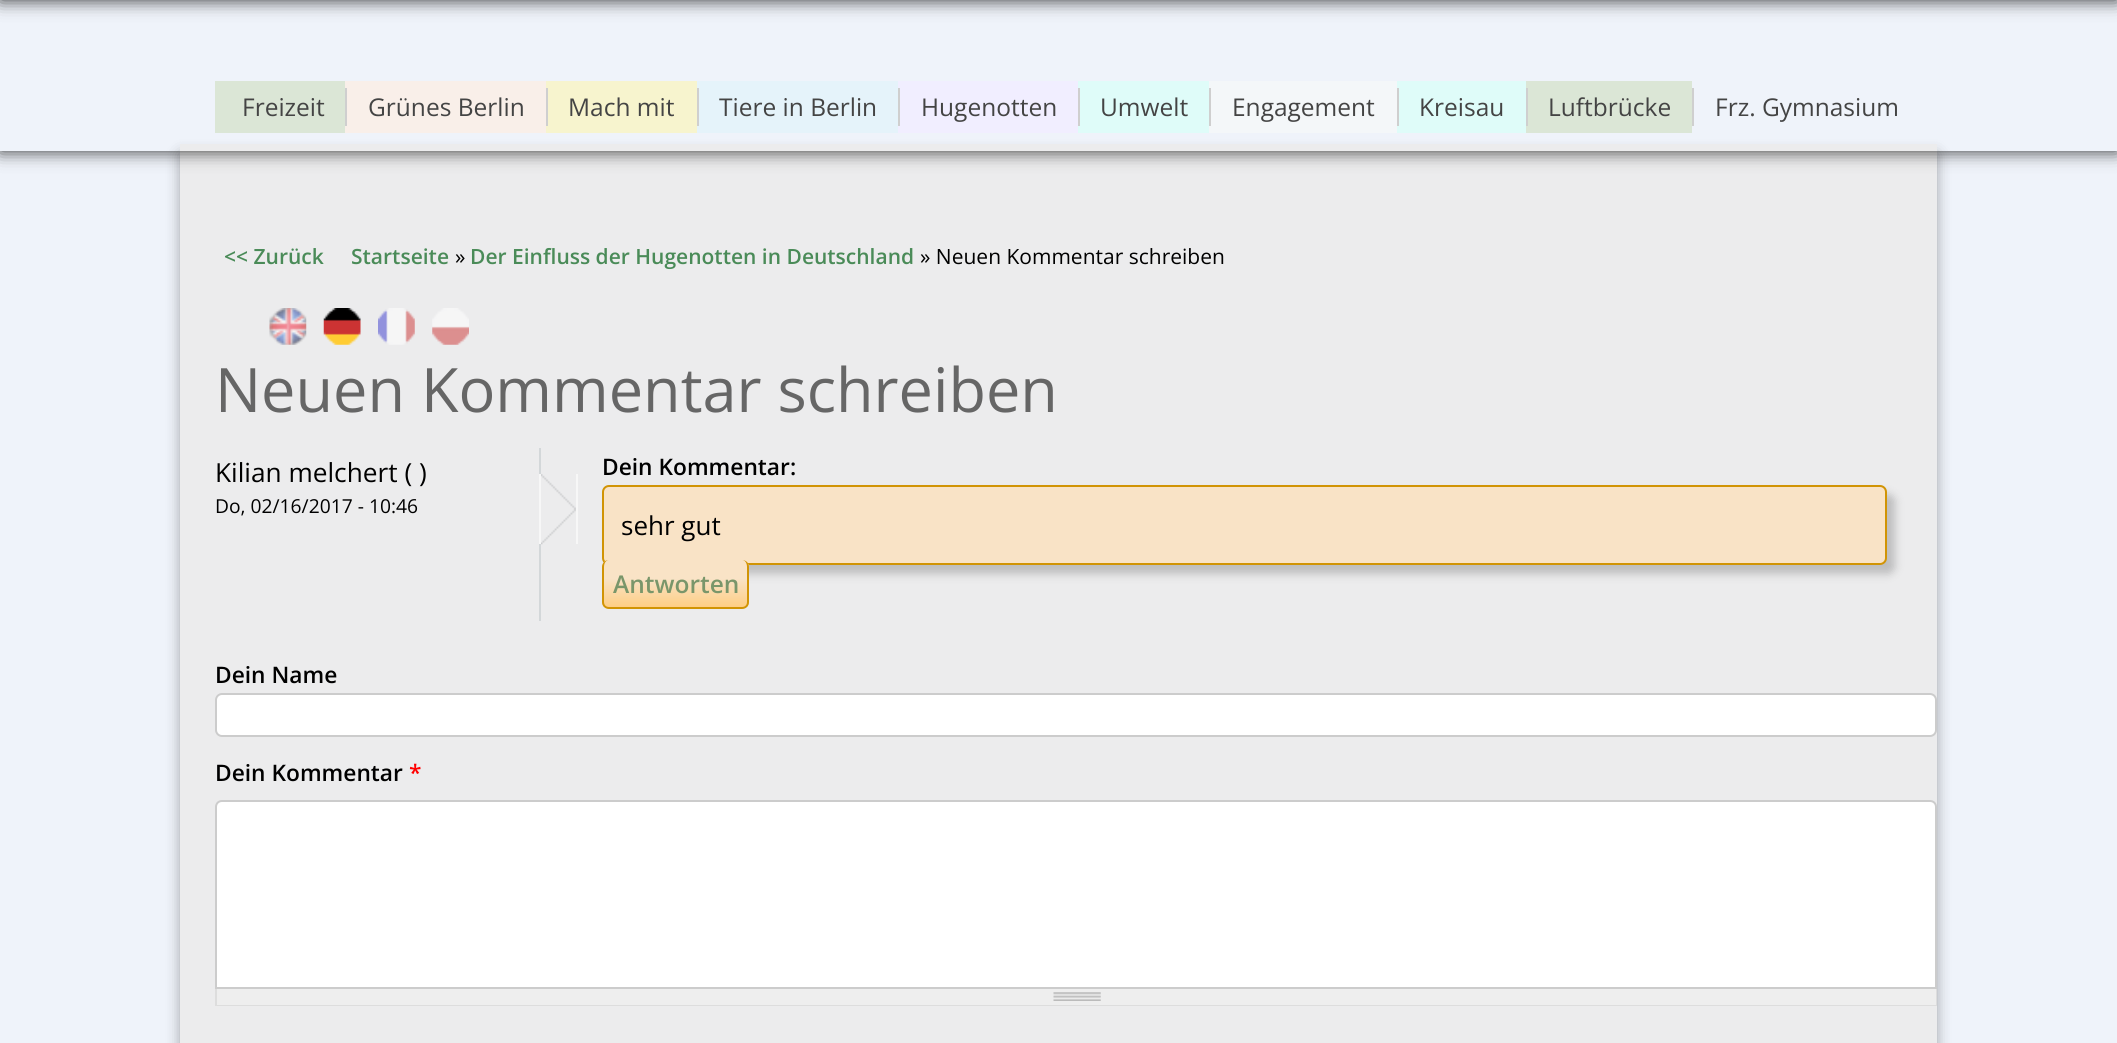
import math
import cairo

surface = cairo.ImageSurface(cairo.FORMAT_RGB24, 2117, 1043)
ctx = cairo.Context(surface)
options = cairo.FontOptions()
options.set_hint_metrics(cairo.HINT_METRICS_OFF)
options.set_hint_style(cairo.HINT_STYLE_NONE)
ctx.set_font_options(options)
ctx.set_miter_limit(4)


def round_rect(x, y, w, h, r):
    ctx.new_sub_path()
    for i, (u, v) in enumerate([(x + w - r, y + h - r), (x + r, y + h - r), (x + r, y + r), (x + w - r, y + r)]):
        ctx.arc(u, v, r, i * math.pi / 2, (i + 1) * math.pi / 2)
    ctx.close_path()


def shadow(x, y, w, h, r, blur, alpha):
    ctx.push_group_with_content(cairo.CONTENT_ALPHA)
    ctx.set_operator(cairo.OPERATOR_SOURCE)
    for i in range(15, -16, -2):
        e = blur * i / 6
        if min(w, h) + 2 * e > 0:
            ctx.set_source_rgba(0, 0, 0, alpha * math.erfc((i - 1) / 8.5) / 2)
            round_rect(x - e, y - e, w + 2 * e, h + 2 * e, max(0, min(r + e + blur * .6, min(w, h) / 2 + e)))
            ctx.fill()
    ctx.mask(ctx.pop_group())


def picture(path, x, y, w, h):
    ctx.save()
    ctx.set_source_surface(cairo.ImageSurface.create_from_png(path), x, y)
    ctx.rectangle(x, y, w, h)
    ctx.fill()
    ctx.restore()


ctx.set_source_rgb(0.937, 0.953, 0.98)
ctx.paint()
ctx.set_source_rgb(0, 0, 0)
shadow(0, -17, 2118, 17, 0, 9, 0.8)
shadow(180, 154, 1757, 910, 0, 7, 0.33)
ctx.set_source_rgb(0.922, 0.925, 0.929)
ctx.rectangle(180, 144, 1757, 899)
ctx.fill()
ctx.save()
ctx.set_fill_rule(cairo.FILL_RULE_EVEN_ODD)
ctx.new_path()
ctx.move_to(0, 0)
ctx.line_to(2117, 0)
ctx.line_to(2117, 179)
ctx.line_to(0, 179)
ctx.close_path()
ctx.move_to(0, -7)
ctx.line_to(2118, -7)
ctx.line_to(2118, 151)
ctx.line_to(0, 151)
ctx.close_path()
ctx.clip()
ctx.set_source_rgb(0, 0, 0)
shadow(0, -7, 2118, 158, 0, 9, 0.8)
ctx.restore()
ctx.set_source_rgb(0.859, 0.902, 0.839)
ctx.rectangle(215, 81, 130, 52)
ctx.fill()
ctx.select_font_face("Open Sans")
ctx.set_font_size(24.5)
ctx.set_source_rgb(0.267, 0.267, 0.267)
ctx.move_to(242, 116)
ctx.show_text("Freizeit")
ctx.set_source_rgb(0.976, 0.937, 0.914)
ctx.rectangle(345, 81, 201, 52)
ctx.fill()
ctx.set_source_rgb(0.812, 0.812, 0.812)
ctx.rectangle(345, 88, 2, 38)
ctx.fill()
ctx.set_source_rgb(0.267, 0.267, 0.267)
ctx.move_to(368, 116)
ctx.show_text("Grünes Berlin")
ctx.set_source_rgb(0.965, 0.957, 0.808)
ctx.rectangle(546, 81, 151, 52)
ctx.fill()
ctx.set_source_rgb(0.812, 0.812, 0.812)
ctx.rectangle(546, 88, 2, 38)
ctx.fill()
ctx.set_source_rgb(0.267, 0.267, 0.267)
ctx.move_to(568, 116)
ctx.show_text("Mach mit")
ctx.set_source_rgb(0.898, 0.953, 0.98)
ctx.rectangle(697, 81, 201, 52)
ctx.fill()
ctx.set_source_rgb(0.812, 0.812, 0.812)
ctx.rectangle(697, 88, 2, 38)
ctx.fill()
ctx.set_source_rgb(0.267, 0.267, 0.267)
ctx.move_to(719, 116)
ctx.show_text("Tiere in Berlin")
ctx.set_source_rgb(0.945, 0.933, 1)
ctx.rectangle(898, 81, 180, 52)
ctx.fill()
ctx.set_source_rgb(0.812, 0.812, 0.812)
ctx.rectangle(898, 88, 2, 38)
ctx.fill()
ctx.set_source_rgb(0.267, 0.267, 0.267)
ctx.move_to(921, 116)
ctx.show_text("Hugenotten")
ctx.set_source_rgb(0.875, 0.988, 0.973)
ctx.rectangle(1078, 81, 131, 52)
ctx.fill()
ctx.set_source_rgb(0.812, 0.812, 0.812)
ctx.rectangle(1078, 88, 2, 38)
ctx.fill()
ctx.set_source_rgb(0.267, 0.267, 0.267)
ctx.move_to(1100, 116)
ctx.show_text("Umwelt")
ctx.set_source_rgb(0.957, 0.965, 0.973)
ctx.rectangle(1209, 81, 188, 52)
ctx.fill()
ctx.set_source_rgb(0.812, 0.812, 0.812)
ctx.rectangle(1209, 88, 2, 38)
ctx.fill()
ctx.set_source_rgb(0.267, 0.267, 0.267)
ctx.move_to(1232, 116)
ctx.show_text("Engagement")
ctx.set_source_rgb(0.875, 0.988, 0.973)
ctx.rectangle(1397, 81, 129, 52)
ctx.fill()
ctx.set_source_rgb(0.812, 0.812, 0.812)
ctx.rectangle(1397, 88, 2, 38)
ctx.fill()
ctx.set_source_rgb(0.267, 0.267, 0.267)
ctx.move_to(1419, 116)
ctx.show_text("Kreisau")
ctx.set_source_rgb(0.859, 0.902, 0.839)
ctx.rectangle(1526, 81, 166, 52)
ctx.fill()
ctx.set_source_rgb(0.812, 0.812, 0.812)
ctx.rectangle(1526, 88, 2, 38)
ctx.fill()
ctx.set_source_rgb(0.267, 0.267, 0.267)
ctx.move_to(1548, 116)
ctx.show_text("Luftbrücke")
ctx.set_source_rgb(0.812, 0.812, 0.812)
ctx.rectangle(1692, 88, 2, 38)
ctx.fill()
ctx.set_source_rgb(0.267, 0.267, 0.267)
ctx.move_to(1715, 116)
ctx.show_text("Frz. Gymnasium")
ctx.select_font_face("Open Sans SemiBold")
ctx.set_font_size(21)
ctx.set_source_rgb(0.29, 0.545, 0.345)
ctx.move_to(224, 264)
ctx.show_text("<< Zurück")
ctx.move_to(351, 264)
ctx.show_text("Startseite")
ctx.select_font_face("Open Sans")
ctx.set_source_rgb(0, 0, 0)
ctx.move_to(455, 264)
ctx.show_text("»")
ctx.select_font_face("Open Sans SemiBold")
ctx.set_source_rgb(0.29, 0.545, 0.345)
ctx.move_to(470, 264)
ctx.show_text("Der Einfluss der Hugenotten in Deutschland")
ctx.select_font_face("Open Sans")
ctx.set_source_rgb(0, 0, 0)
ctx.move_to(920, 264)
ctx.show_text("» Neuen Kommentar schreiben")
picture("img1.png", 269, 308, 38, 37)
picture("img2.png", 323, 308, 38, 37)
picture("img3.png", 378, 308, 37, 37)
picture("img4.png", 432, 308, 37, 37)
ctx.set_font_size(61.25)
ctx.set_source_rgb(0.4, 0.4, 0.4)
ctx.move_to(215, 412)
ctx.show_text("Neuen Kommentar schreiben")
ctx.set_font_size(26.25)
ctx.set_source_rgb(0, 0, 0)
ctx.move_to(215, 482)
ctx.show_text("Kilian melchert ( )")
ctx.set_font_size(19.25)
ctx.move_to(215, 513)
ctx.show_text("Do, 02/16/2017 - 10:46")
ctx.set_source_rgb(0.827, 0.843, 0.851)
ctx.rectangle(539, 448, 2, 173)
ctx.fill()
picture("img5.png", 541, 474, 35, 71)
ctx.set_source_rgb(0.965, 0.965, 0.965)
ctx.rectangle(576, 474, 2, 70)
ctx.fill()
ctx.rectangle(539, 474, 2, 70)
ctx.fill()
ctx.select_font_face("Open Sans SemiBold")
ctx.set_font_size(22.75)
ctx.set_source_rgb(0, 0, 0)
ctx.move_to(602, 475)
ctx.show_text("Dein Kommentar:")
ctx.set_source_rgb(0, 0, 0)
shadow(611, 494, 1284, 80, 7, 4.5, 0.2)
ctx.set_source_rgb(0.976, 0.89, 0.776)
round_rect(603, 486, 1283, 78, 6)
ctx.fill_preserve()
ctx.set_source_rgb(0.82, 0.58, 0.02)
ctx.stroke()
ctx.select_font_face("Open Sans")
ctx.set_font_size(26)
ctx.set_source_rgb(0, 0, 0)
ctx.move_to(621, 535)
ctx.show_text("sehr gut")
ctx.save()
round_rect(602, 560, 147, 49, 7)
ctx.clip()
gradient = cairo.LinearGradient(676, 560, 676, 607)
gradient.add_color_stop_rgba(0, 0.976, 0.89, 0.776, 1)
gradient.add_color_stop_rgba(0.4, 0.976, 0.89, 0.776, 1)
gradient.add_color_stop_rgba(1, 0.996, 0.808, 0.522, 1)
ctx.set_source(gradient)
ctx.new_path()
ctx.move_to(609, 560)
ctx.line_to(742, 560)
ctx.curve_to(746, 560, 749, 563, 749, 567)
ctx.line_to(749, 607)
ctx.line_to(602, 607)
ctx.line_to(602, 567)
ctx.curve_to(602, 563, 605, 560, 609, 560)
ctx.close_path()
ctx.fill()
ctx.restore()
ctx.set_source_rgb(0.82, 0.58, 0.02)
ctx.set_fill_rule(cairo.FILL_RULE_EVEN_ODD)
ctx.new_path()
ctx.move_to(609, 560)
ctx.line_to(742, 560)
ctx.curve_to(746, 560, 749, 563, 749, 567)
ctx.line_to(749, 602)
ctx.curve_to(749, 606, 746, 609, 742, 609)
ctx.line_to(609, 609)
ctx.curve_to(605, 609, 602, 606, 602, 602)
ctx.line_to(602, 567)
ctx.curve_to(602, 563, 605, 560, 609, 560)
ctx.close_path()
ctx.move_to(609, 560)
ctx.line_to(742, 560)
ctx.curve_to(745, 560, 747, 563, 747, 567)
ctx.line_to(747, 602)
ctx.curve_to(747, 605, 745, 607, 742, 607)
ctx.line_to(609, 607)
ctx.curve_to(606, 607, 604, 605, 604, 602)
ctx.line_to(604, 567)
ctx.curve_to(604, 563, 606, 560, 609, 560)
ctx.close_path()
ctx.fill()
ctx.select_font_face("Open Sans SemiBold")
ctx.set_font_size(24.5)
ctx.set_source_rgb(0.478, 0.588, 0.416)
ctx.move_to(613, 593)
ctx.show_text("Antworten")
ctx.set_font_size(22.75)
ctx.set_source_rgb(0, 0, 0)
ctx.move_to(215, 683)
ctx.show_text("Dein Name")
ctx.set_source_rgb(1, 1, 1)
round_rect(216, 694, 1720, 42, 6)
ctx.fill_preserve()
ctx.set_source_rgb(0.8, 0.8, 0.8)
ctx.stroke()
ctx.set_source_rgb(0, 0, 0)
ctx.move_to(215, 781)
ctx.show_text("Dein Kommentar")
ctx.set_source_rgb(1, 0, 0)
ctx.move_to(409, 781)
ctx.show_text("*")
ctx.set_source_rgb(1, 1, 1)
ctx.new_path()
ctx.move_to(222, 801)
ctx.line_to(1930, 801)
ctx.curve_to(1933.5, 801, 1936, 803.5, 1936, 807)
ctx.line_to(1936, 988)
ctx.line_to(216, 988)
ctx.line_to(216, 807)
ctx.curve_to(216, 803.5, 218.5, 801, 222, 801)
ctx.close_path()
ctx.fill_preserve()
ctx.set_source_rgb(0.8, 0.8, 0.8)
ctx.stroke()
ctx.set_source_rgb(0.933, 0.933, 0.933)
ctx.rectangle(217, 989, 1719, 16)
ctx.fill()
picture("img6.png", 1053, 992, 48, 9)
ctx.set_source_rgb(0.867, 0.867, 0.867)
ctx.rectangle(1936, 989, 1, 17)
ctx.fill()
ctx.rectangle(215, 1005, 1722, 1)
ctx.fill()
ctx.rectangle(215, 989, 2, 17)
ctx.fill()
surface.write_to_png("page.png")
